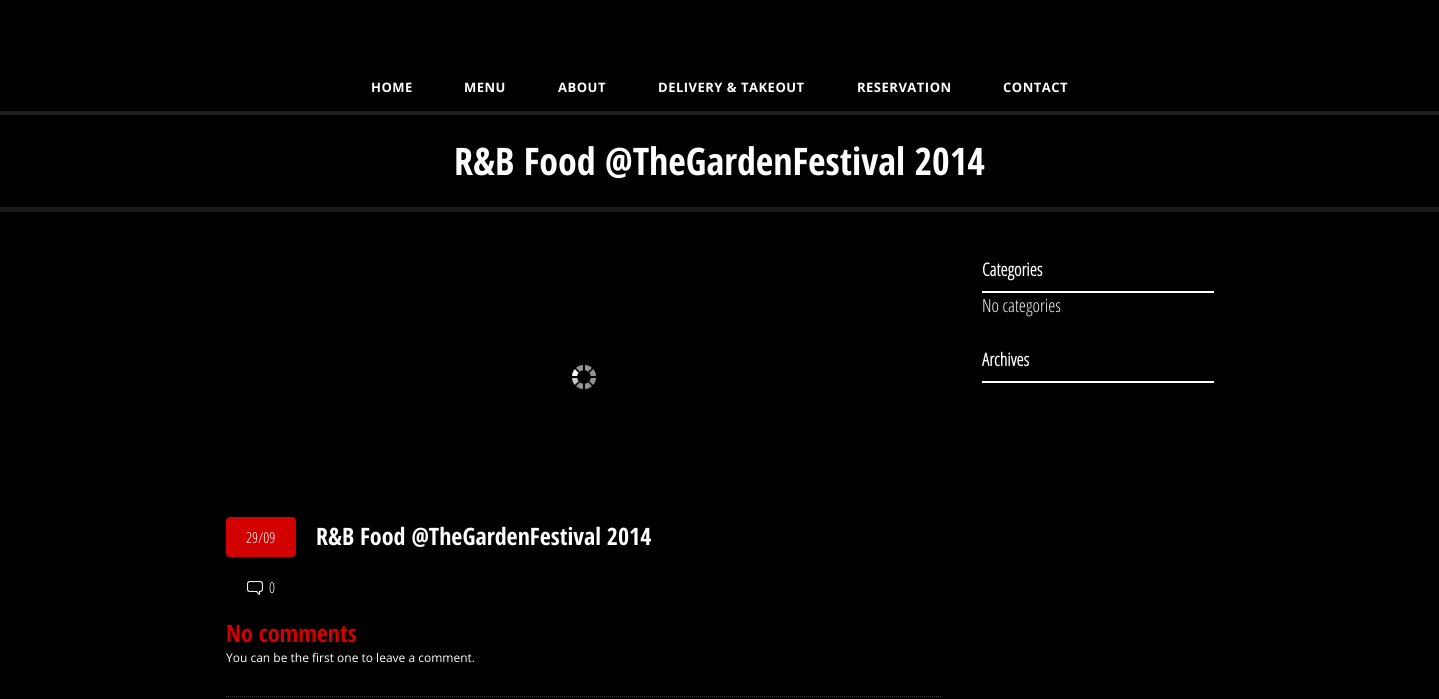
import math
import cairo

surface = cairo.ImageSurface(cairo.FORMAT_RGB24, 1439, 699)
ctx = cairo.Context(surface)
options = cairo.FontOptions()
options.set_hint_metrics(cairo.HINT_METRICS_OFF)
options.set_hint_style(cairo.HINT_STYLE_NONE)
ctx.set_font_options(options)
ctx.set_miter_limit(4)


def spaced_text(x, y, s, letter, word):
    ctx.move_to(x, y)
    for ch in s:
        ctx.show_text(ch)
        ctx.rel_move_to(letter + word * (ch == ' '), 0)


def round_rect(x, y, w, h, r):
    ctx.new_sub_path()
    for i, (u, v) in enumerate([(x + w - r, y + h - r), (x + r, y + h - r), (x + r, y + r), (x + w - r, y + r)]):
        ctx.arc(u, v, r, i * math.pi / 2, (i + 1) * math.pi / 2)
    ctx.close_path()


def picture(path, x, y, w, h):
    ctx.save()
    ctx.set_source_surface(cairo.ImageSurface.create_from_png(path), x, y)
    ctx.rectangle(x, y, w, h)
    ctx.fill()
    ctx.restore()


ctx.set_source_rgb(0, 0, 0)
ctx.paint()
ctx.set_source_rgb(0.122, 0.122, 0.122)
ctx.rectangle(0, 111, 1439, 4)
ctx.fill()
ctx.select_font_face("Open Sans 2", cairo.FONT_SLANT_NORMAL, cairo.FONT_WEIGHT_BOLD)
ctx.set_font_size(13)
ctx.set_source_rgb(1, 1, 1)
spaced_text(371, 92, "HOME", 0.5, 0)
spaced_text(464, 92, "MENU", 0.5, 0)
spaced_text(558, 92, "ABOUT", 0.5, 0)
spaced_text(658, 92, "DELIVERY & TAKEOUT", 0.5, 0)
spaced_text(857, 92, "RESERVATION", 0.5, 0)
spaced_text(1003, 92, "CONTACT", 0.5, 0)
ctx.select_font_face("Open Sans Condensed", cairo.FONT_SLANT_NORMAL, cairo.FONT_WEIGHT_BOLD)
ctx.set_font_size(38)
ctx.move_to(454, 175)
ctx.show_text("R&B Food @TheGardenFestival 2014")
ctx.set_source_rgb(0.102, 0.102, 0.102)
ctx.rectangle(0, 207, 1439, 5)
ctx.fill()
ctx.set_source_rgb(1, 1, 1)
ctx.rectangle(982, 291, 232, 2)
ctx.fill()
ctx.select_font_face("Open Sans", cairo.FONT_SLANT_NORMAL, cairo.FONT_WEIGHT_BOLD)
ctx.set_font_size(18)
ctx.move_to(982, 276)
ctx.show_text("Categories")
ctx.select_font_face("Open Sans Light")
ctx.move_to(982, 312)
ctx.show_text("No categories")
ctx.rectangle(982, 381, 232, 2)
ctx.fill()
ctx.select_font_face("Open Sans", cairo.FONT_SLANT_NORMAL, cairo.FONT_WEIGHT_BOLD)
ctx.move_to(982, 366)
ctx.show_text("Archives")
picture("img1.png", 572, 365, 24, 24)
ctx.set_source_rgb(0.827, 0, 0)
round_rect(226, 517, 70, 40, 4)
ctx.fill()
ctx.select_font_face("Open Sans Light")
ctx.set_font_size(15)
ctx.set_source_rgb(1, 1, 1)
ctx.move_to(246, 543)
ctx.show_text("29/09")
picture("img2.png", 247, 581, 16, 15)
ctx.move_to(269, 593)
ctx.show_text("0")
ctx.select_font_face("Open Sans Condensed", cairo.FONT_SLANT_NORMAL, cairo.FONT_WEIGHT_BOLD)
ctx.set_font_size(24)
ctx.move_to(316, 545)
ctx.show_text("R&B Food @TheGardenFestival 2014")
ctx.set_source_rgb(0.827, 0, 0)
ctx.move_to(226, 642)
ctx.show_text("No comments")
ctx.select_font_face("Open Sans")
ctx.set_font_size(12)
ctx.set_source_rgb(1, 1, 1)
ctx.move_to(226, 662)
ctx.show_text("You can be the first one to leave a comment.")
picture("img3.png", 226, 696, 715, 1)
surface.write_to_png("page.png")
